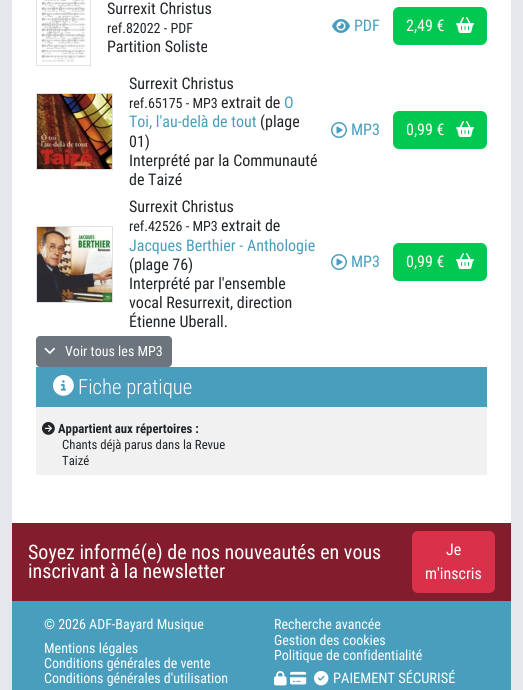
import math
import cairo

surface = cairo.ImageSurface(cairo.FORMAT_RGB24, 523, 690)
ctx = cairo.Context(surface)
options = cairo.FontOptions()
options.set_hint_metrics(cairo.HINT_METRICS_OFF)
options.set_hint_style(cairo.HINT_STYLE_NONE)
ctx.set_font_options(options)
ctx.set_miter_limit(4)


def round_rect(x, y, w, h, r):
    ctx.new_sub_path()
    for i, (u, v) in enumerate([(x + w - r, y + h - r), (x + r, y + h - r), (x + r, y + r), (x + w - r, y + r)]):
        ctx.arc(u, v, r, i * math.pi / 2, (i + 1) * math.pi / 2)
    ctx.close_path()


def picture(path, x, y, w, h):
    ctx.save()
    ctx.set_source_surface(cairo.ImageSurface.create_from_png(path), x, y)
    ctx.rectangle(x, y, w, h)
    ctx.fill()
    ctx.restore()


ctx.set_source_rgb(0.898, 0.906, 0.922)
ctx.paint()
ctx.set_source_rgb(1, 1, 1)
ctx.rectangle(12, 0, 499, 523)
ctx.fill()
ctx.rectangle(36.5, -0.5, 54, 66)
ctx.set_source_rgb(0.871, 0.886, 0.902)
ctx.set_line_width(1)
ctx.stroke()
picture("img1.png", 41, 0, 45, 62)
ctx.select_font_face("Roboto Condensed")
ctx.set_font_size(16)
ctx.set_source_rgb(0.129, 0.145, 0.161)
ctx.move_to(107, 14)
ctx.show_text("Surrexit Christus")
ctx.set_font_size(14)
ctx.move_to(107, 33)
ctx.show_text("ref.82022 - PDF")
ctx.set_font_size(16)
ctx.move_to(107, 52)
ctx.show_text("Partition Soliste")
picture("img2.png", 332, 19, 18, 14)
ctx.set_source_rgb(0.286, 0.62, 0.741)
ctx.move_to(354, 31)
ctx.show_text("PDF")
ctx.set_source_rgb(0, 0.784, 0.318)
round_rect(393, 7, 94, 38, 6)
ctx.fill()
ctx.set_source_rgb(1, 1, 1)
ctx.move_to(406, 31)
ctx.show_text("2,49 €")
picture("img3.png", 456, 17, 18, 16)
ctx.rectangle(36.5, 93.5, 76, 76)
ctx.set_source_rgb(0.871, 0.886, 0.902)
ctx.stroke()
picture("img4.png", 37, 94, 75, 75)
ctx.set_source_rgb(0.129, 0.145, 0.161)
ctx.move_to(129, 89)
ctx.show_text("Surrexit Christus")
ctx.set_font_size(14)
ctx.move_to(129, 108)
ctx.show_text("ref.65175 - MP3")
ctx.set_font_size(16)
ctx.move_to(221, 108)
ctx.show_text("extrait de")
ctx.set_source_rgb(0.286, 0.62, 0.741)
ctx.move_to(284, 108)
ctx.show_text("O")
ctx.move_to(129, 127)
ctx.show_text("Toi, l'au-delà de tout")
ctx.set_source_rgb(0.129, 0.145, 0.161)
ctx.move_to(260, 127)
ctx.show_text("(plage")
ctx.move_to(129, 147)
ctx.show_text("01)")
ctx.move_to(129, 166)
ctx.show_text("Interprété par la Communauté")
ctx.move_to(129, 185)
ctx.show_text("de Taizé")
picture("img5.png", 331, 122, 16, 16)
ctx.set_source_rgb(0.286, 0.62, 0.741)
ctx.move_to(351, 135)
ctx.show_text("MP3")
ctx.set_source_rgb(0, 0.784, 0.318)
round_rect(393, 111, 94, 38, 6)
ctx.fill()
ctx.set_source_rgb(1, 1, 1)
ctx.move_to(406, 135)
ctx.show_text("0,99 €")
picture("img3.png", 456, 121, 18, 16)
ctx.rectangle(36.5, 226.5, 76, 76)
ctx.set_source_rgb(0.871, 0.886, 0.902)
ctx.stroke()
picture("img6.png", 37, 227, 75, 75)
ctx.set_source_rgb(0.129, 0.145, 0.161)
ctx.move_to(129, 212)
ctx.show_text("Surrexit Christus")
ctx.set_font_size(14)
ctx.move_to(129, 231)
ctx.show_text("ref.42526 - MP3")
ctx.set_font_size(16)
ctx.move_to(221, 231)
ctx.show_text("extrait de")
ctx.set_source_rgb(0.286, 0.62, 0.741)
ctx.move_to(129, 251)
ctx.show_text("Jacques Berthier - Anthologie")
ctx.set_source_rgb(0.129, 0.145, 0.161)
ctx.move_to(129, 270)
ctx.show_text("(plage 76)")
ctx.move_to(129, 289)
ctx.show_text("Interprété par l'ensemble")
ctx.move_to(129, 308)
ctx.show_text("vocal Resurrexit, direction")
ctx.move_to(129, 327)
ctx.show_text("Étienne Uberall.")
picture("img5.png", 331, 254, 16, 16)
ctx.set_source_rgb(0.286, 0.62, 0.741)
ctx.move_to(351, 267)
ctx.show_text("MP3")
ctx.set_source_rgb(0, 0.784, 0.318)
round_rect(393, 243, 94, 38, 6)
ctx.fill()
ctx.set_source_rgb(1, 1, 1)
ctx.move_to(406, 267)
ctx.show_text("0,99 €")
picture("img3.png", 456, 253, 18, 16)
ctx.set_source_rgb(0.424, 0.459, 0.49)
round_rect(36.5, 336.5, 135, 30, 3.5)
ctx.fill_preserve()
ctx.stroke()
picture("img7.png", 44, 347, 11, 7)
ctx.set_font_size(14)
ctx.set_source_rgb(1, 1, 1)
ctx.move_to(65, 356)
ctx.show_text("Voir tous les MP3")
ctx.set_source_rgb(0.286, 0.62, 0.741)
ctx.rectangle(36, 367, 451, 40)
ctx.fill()
picture("img8.png", 53, 375, 21, 21)
ctx.select_font_face("Roboto Condensed Light")
ctx.set_font_size(20.75)
ctx.set_source_rgb(1, 1, 1)
ctx.move_to(78, 394)
ctx.show_text("Fiche pratique")
ctx.set_source_rgb(0.945, 0.945, 0.945)
ctx.rectangle(36, 407, 451, 68)
ctx.fill()
picture("img9.png", 42, 422, 13, 13)
ctx.select_font_face("Roboto Condensed", cairo.FONT_SLANT_NORMAL, cairo.FONT_WEIGHT_BOLD)
ctx.set_font_size(12.75)
ctx.set_source_rgb(0.129, 0.145, 0.161)
ctx.move_to(58, 433)
ctx.show_text("Appartient aux répertoires :")
ctx.select_font_face("Roboto Condensed")
ctx.move_to(62, 449)
ctx.show_text("Chants déjà parus dans la Revue")
ctx.move_to(62, 465)
ctx.show_text("Taizé")
ctx.set_source_rgb(0.514, 0.114, 0.176)
ctx.rectangle(12, 523, 499, 78)
ctx.fill()
ctx.set_font_size(20)
ctx.set_source_rgb(1, 1, 1)
ctx.move_to(28, 559)
ctx.show_text("Soyez informé(e) de nos nouveautés en vous")
ctx.move_to(28, 578)
ctx.show_text("inscrivant à la newsletter")
ctx.set_source_rgb(0.855, 0.192, 0.294)
round_rect(412, 531, 83, 62, 6)
ctx.fill()
ctx.set_font_size(16)
ctx.set_source_rgb(1, 1, 1)
ctx.move_to(446, 555)
ctx.show_text("Je")
ctx.move_to(425, 579)
ctx.show_text("m'inscris")
ctx.set_source_rgb(0.286, 0.62, 0.741)
ctx.rectangle(12, 601, 499, 89)
ctx.fill()
ctx.set_font_size(14)
ctx.set_source_rgb(1, 1, 1)
ctx.move_to(44, 629)
ctx.show_text("© 2026 ADF-Bayard Musique")
ctx.move_to(44, 653)
ctx.show_text("Mentions légales")
ctx.move_to(44, 668)
ctx.show_text("Conditions générales de vente")
ctx.move_to(44, 683)
ctx.show_text("Conditions générales d'utilisation")
ctx.move_to(274, 629)
ctx.show_text("Recherche avancée")
ctx.move_to(274, 645)
ctx.show_text("Gestion des cookies")
ctx.move_to(274, 660)
ctx.show_text("Politique de confidentialité")
picture("img10.png", 274, 671, 13, 15)
picture("img11.png", 290, 671, 17, 14)
picture("img12.png", 314, 671, 15, 15)
ctx.set_font_size(14.5)
ctx.move_to(333, 683)
ctx.show_text("PAIEMENT SÉCURISÉ")
surface.write_to_png("page.png")
